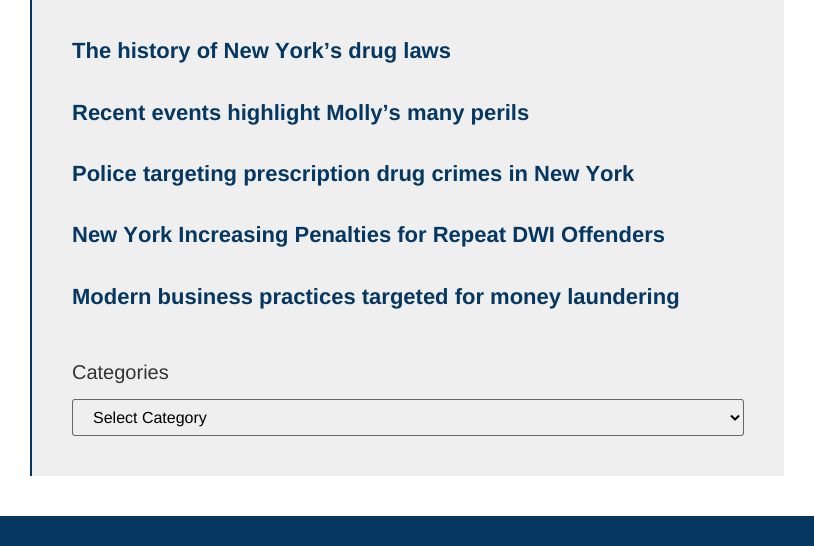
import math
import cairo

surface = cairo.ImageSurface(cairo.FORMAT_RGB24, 814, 546)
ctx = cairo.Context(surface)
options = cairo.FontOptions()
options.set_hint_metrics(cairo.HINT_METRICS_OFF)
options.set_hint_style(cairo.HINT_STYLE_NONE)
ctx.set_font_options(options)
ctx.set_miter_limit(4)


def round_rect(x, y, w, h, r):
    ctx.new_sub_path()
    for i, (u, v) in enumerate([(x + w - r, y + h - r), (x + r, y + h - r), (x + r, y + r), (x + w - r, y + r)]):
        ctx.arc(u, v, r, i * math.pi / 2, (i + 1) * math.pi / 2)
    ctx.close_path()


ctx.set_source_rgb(1, 1, 1)
ctx.paint()
ctx.set_source_rgb(0.937, 0.937, 0.937)
ctx.rectangle(32, 0, 752, 476)
ctx.fill()
ctx.set_source_rgb(0.02, 0.216, 0.376)
ctx.rectangle(30, 0, 2, 476)
ctx.fill()
ctx.select_font_face("Liberation Sans", cairo.FONT_SLANT_NORMAL, cairo.FONT_WEIGHT_BOLD)
ctx.set_font_size(22)
ctx.move_to(72, 58)
ctx.show_text("The history of New York’s drug laws")
ctx.move_to(72, 120)
ctx.show_text("Recent events highlight Molly’s many perils")
ctx.move_to(72, 181)
ctx.show_text("Police targeting prescription drug crimes in New York")
ctx.move_to(72, 242)
ctx.show_text("New York Increasing Penalties for Repeat DWI Offenders")
ctx.move_to(72, 304)
ctx.show_text("Modern business practices targeted for money laundering")
ctx.select_font_face("Liberation Sans")
ctx.set_font_size(20)
ctx.set_source_rgb(0.2, 0.2, 0.2)
ctx.move_to(72, 379)
ctx.show_text("Categories")
round_rect(72.5, 399.5, 671, 36, 2.5)
ctx.set_source_rgb(0.4, 0.4, 0.4)
ctx.set_line_width(1)
ctx.stroke()
ctx.new_path()
ctx.move_to(731, 415.5)
ctx.line_to(735, 419.5)
ctx.line_to(739, 415.5)
ctx.set_source_rgb(0, 0, 0)
ctx.set_line_width(2)
ctx.stroke()
ctx.set_font_size(16)
ctx.move_to(93, 423)
ctx.show_text("Select Category")
ctx.set_source_rgb(0.02, 0.216, 0.376)
ctx.rectangle(0, 516, 814, 30)
ctx.fill()
surface.write_to_png("page.png")
